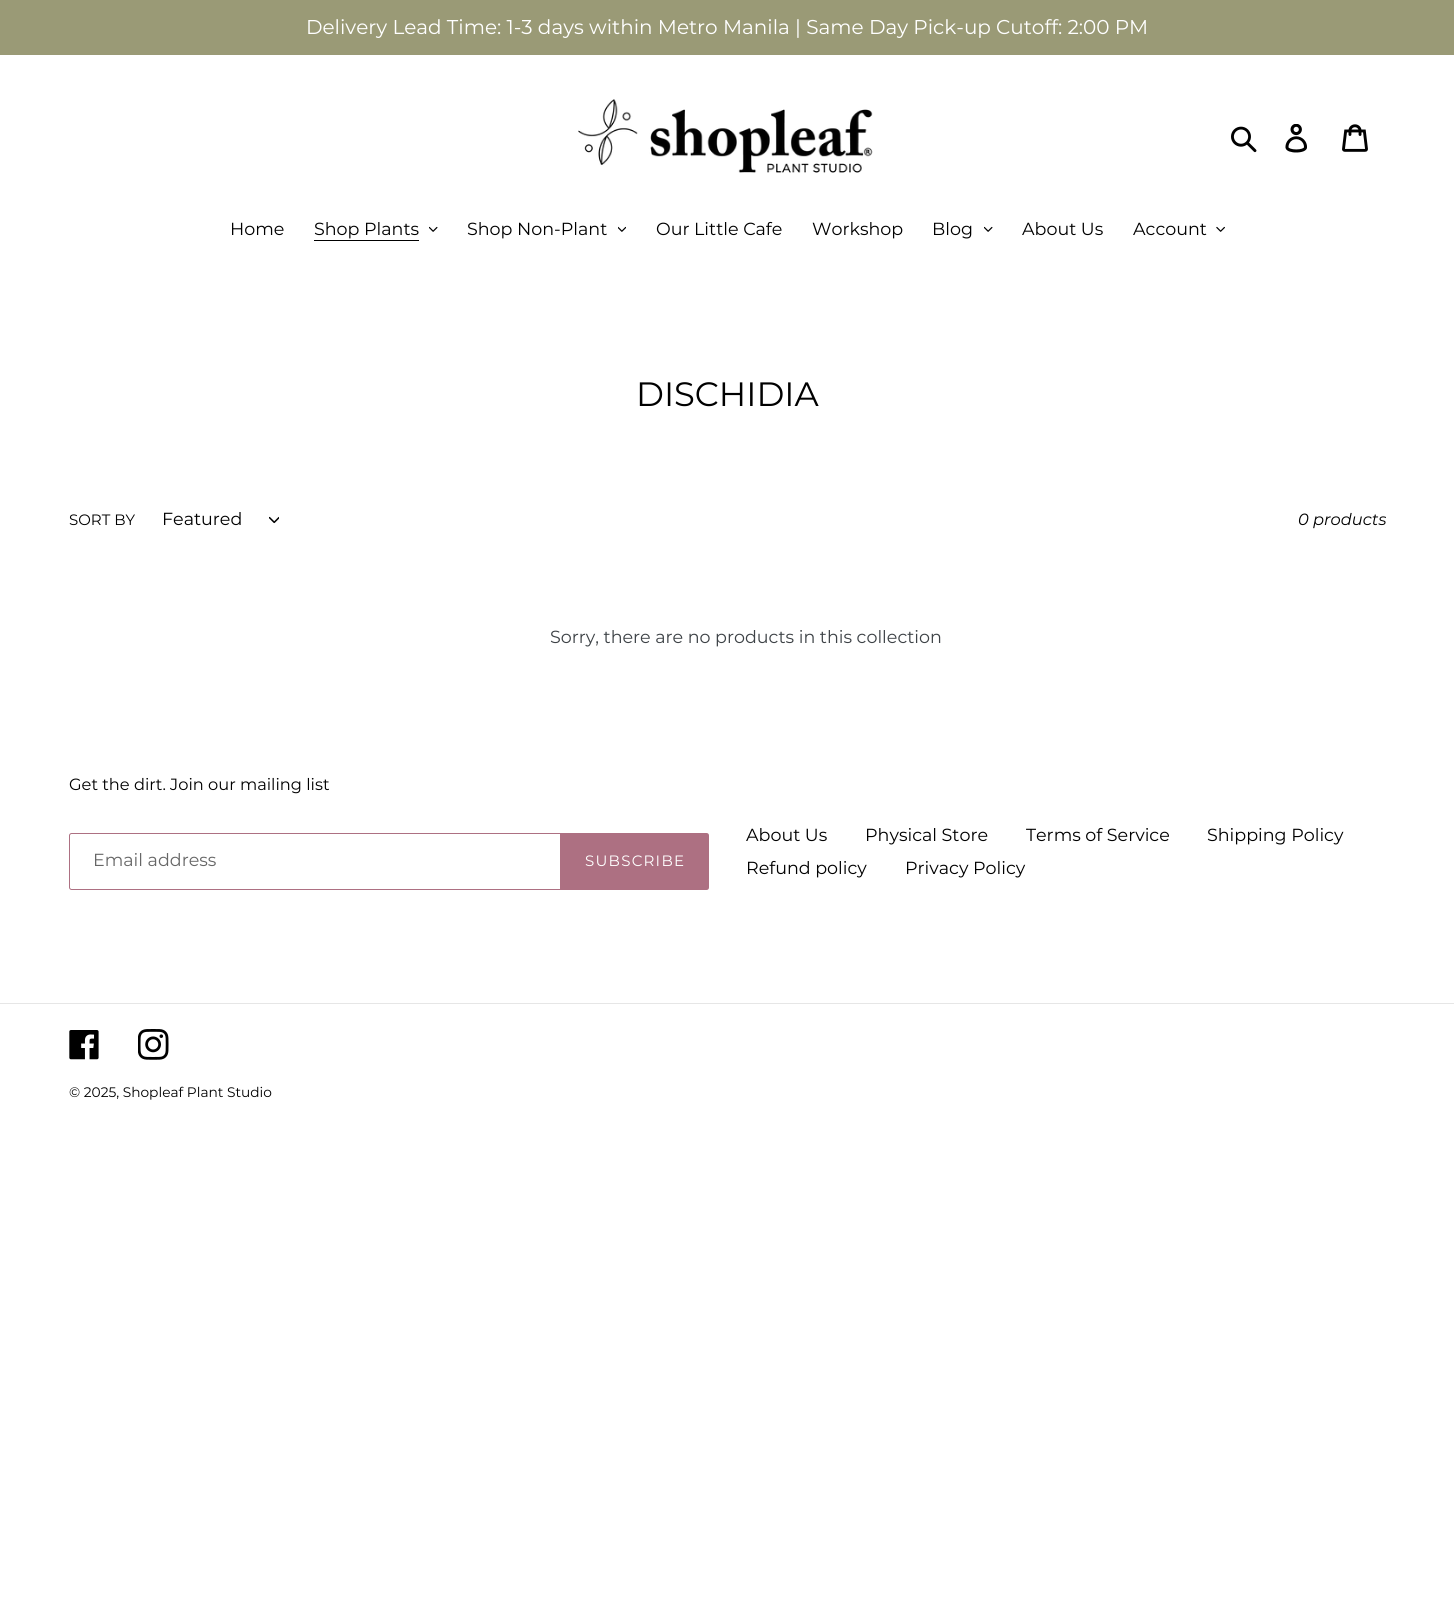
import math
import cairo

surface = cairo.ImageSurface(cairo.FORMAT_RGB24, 1454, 1621)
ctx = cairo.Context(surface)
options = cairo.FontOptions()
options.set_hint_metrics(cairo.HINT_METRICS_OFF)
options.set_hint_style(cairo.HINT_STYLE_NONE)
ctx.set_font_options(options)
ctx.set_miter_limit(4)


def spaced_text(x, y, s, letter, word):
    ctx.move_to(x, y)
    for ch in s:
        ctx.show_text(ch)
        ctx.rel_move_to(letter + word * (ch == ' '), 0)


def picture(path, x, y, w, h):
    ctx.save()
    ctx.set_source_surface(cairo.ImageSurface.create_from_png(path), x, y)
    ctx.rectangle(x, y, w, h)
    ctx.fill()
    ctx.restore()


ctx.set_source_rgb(1, 1, 1)
ctx.paint()
ctx.set_source_rgb(0.604, 0.604, 0.463)
ctx.rectangle(0, 0, 1454, 55)
ctx.fill()
ctx.select_font_face("Montserrat")
ctx.set_font_size(20)
ctx.set_source_rgb(1, 1, 1)
ctx.move_to(306, 34)
ctx.show_text("Delivery Lead Time: 1-3 days within Metro Manila | Same Day Pick-up Cutoff: 2:00 PM")
picture("img1.png", 578, 99, 295, 74)
picture("img2.png", 1231, 126, 26, 27)
picture("img3.png", 1285, 124, 22, 29)
picture("img4.png", 1342, 124, 26, 28)
ctx.set_font_size(17.5)
ctx.set_source_rgb(0, 0, 0)
ctx.move_to(230, 235)
ctx.show_text("Home")
ctx.move_to(314, 235)
ctx.show_text("Shop Plants")
ctx.rectangle(314, 240, 105, 1)
ctx.fill()
picture("img5.png", 429, 226, 9, 6)
ctx.move_to(467, 235)
ctx.show_text("Shop Non-Plant")
picture("img6.png", 618, 226, 8, 6)
ctx.move_to(656, 235)
ctx.show_text("Our Little Cafe")
ctx.move_to(812, 235)
ctx.show_text("Workshop")
ctx.move_to(932, 235)
ctx.show_text("Blog")
picture("img5.png", 984, 226, 9, 6)
ctx.move_to(1022, 235)
ctx.show_text("About Us")
ctx.move_to(1133, 235)
ctx.show_text("Account")
picture("img7.png", 1216, 226, 9, 6)
ctx.set_font_size(33.75)
ctx.move_to(636, 406)
ctx.show_text("DISCHIDIA")
ctx.set_font_size(15)
ctx.move_to(69, 525)
ctx.show_text("SORT BY")
ctx.set_font_size(17.5)
ctx.move_to(162, 525)
ctx.show_text("Featured")
picture("img8.png", 269, 516, 10, 8)
ctx.select_font_face("Montserrat", cairo.FONT_SLANT_ITALIC)
ctx.set_font_size(16.25)
ctx.move_to(1298, 525)
ctx.show_text("0 products")
ctx.select_font_face("Montserrat")
ctx.set_font_size(17.5)
ctx.set_source_rgb(0.239, 0.259, 0.275)
ctx.move_to(550, 643)
ctx.show_text("Sorry, there are no products in this collection")
ctx.set_font_size(16.25)
ctx.set_source_rgb(0, 0, 0)
ctx.move_to(69, 790)
ctx.show_text("Get the dirt. Join our mailing list")
ctx.new_path()
ctx.move_to(71.5, 833.5)
ctx.line_to(560.5, 833.5)
ctx.line_to(560.5, 889.5)
ctx.line_to(71.5, 889.5)
ctx.curve_to(70.5, 889.5, 69.5, 888.5, 69.5, 887.5)
ctx.line_to(69.5, 835.5)
ctx.curve_to(69.5, 834.5, 70.5, 833.5, 71.5, 833.5)
ctx.close_path()
ctx.set_source_rgb(0.678, 0.439, 0.51)
ctx.set_line_width(1)
ctx.stroke()
ctx.set_font_size(17.5)
ctx.set_source_rgb(0.4, 0.4, 0.4)
ctx.move_to(93, 866)
ctx.show_text("Email address")
ctx.set_source_rgb(0.678, 0.439, 0.51)
ctx.new_path()
ctx.move_to(561, 833)
ctx.line_to(706.5, 833)
ctx.curve_to(708, 833, 709, 834, 709, 835.5)
ctx.line_to(709, 887.5)
ctx.curve_to(709, 889, 708, 890, 706.5, 890)
ctx.line_to(561, 890)
ctx.close_path()
ctx.fill()
ctx.set_font_size(15)
ctx.set_source_rgb(1, 1, 1)
spaced_text(585, 866, "SUBSCRIBE", 1.25, 0)
ctx.set_font_size(17.5)
ctx.set_source_rgb(0, 0, 0)
ctx.move_to(746, 841)
ctx.show_text("About Us")
ctx.move_to(865, 841)
ctx.show_text("Physical Store")
ctx.move_to(1026, 841)
ctx.show_text("Terms of Service")
ctx.move_to(1207, 841)
ctx.show_text("Shipping Policy")
ctx.move_to(746, 874)
ctx.show_text("Refund policy")
ctx.move_to(905, 874)
ctx.show_text("Privacy Policy")
ctx.set_source_rgb(0.902, 0.902, 0.902)
ctx.rectangle(0, 1003, 1454, 1)
ctx.fill()
picture("img9.png", 69, 1030, 30, 30)
picture("img10.png", 138, 1029, 31, 31)
ctx.set_font_size(13.75)
ctx.set_source_rgb(0, 0, 0)
ctx.move_to(69, 1097)
ctx.show_text("© 2025, Shopleaf Plant Studio")
surface.write_to_png("page.png")
